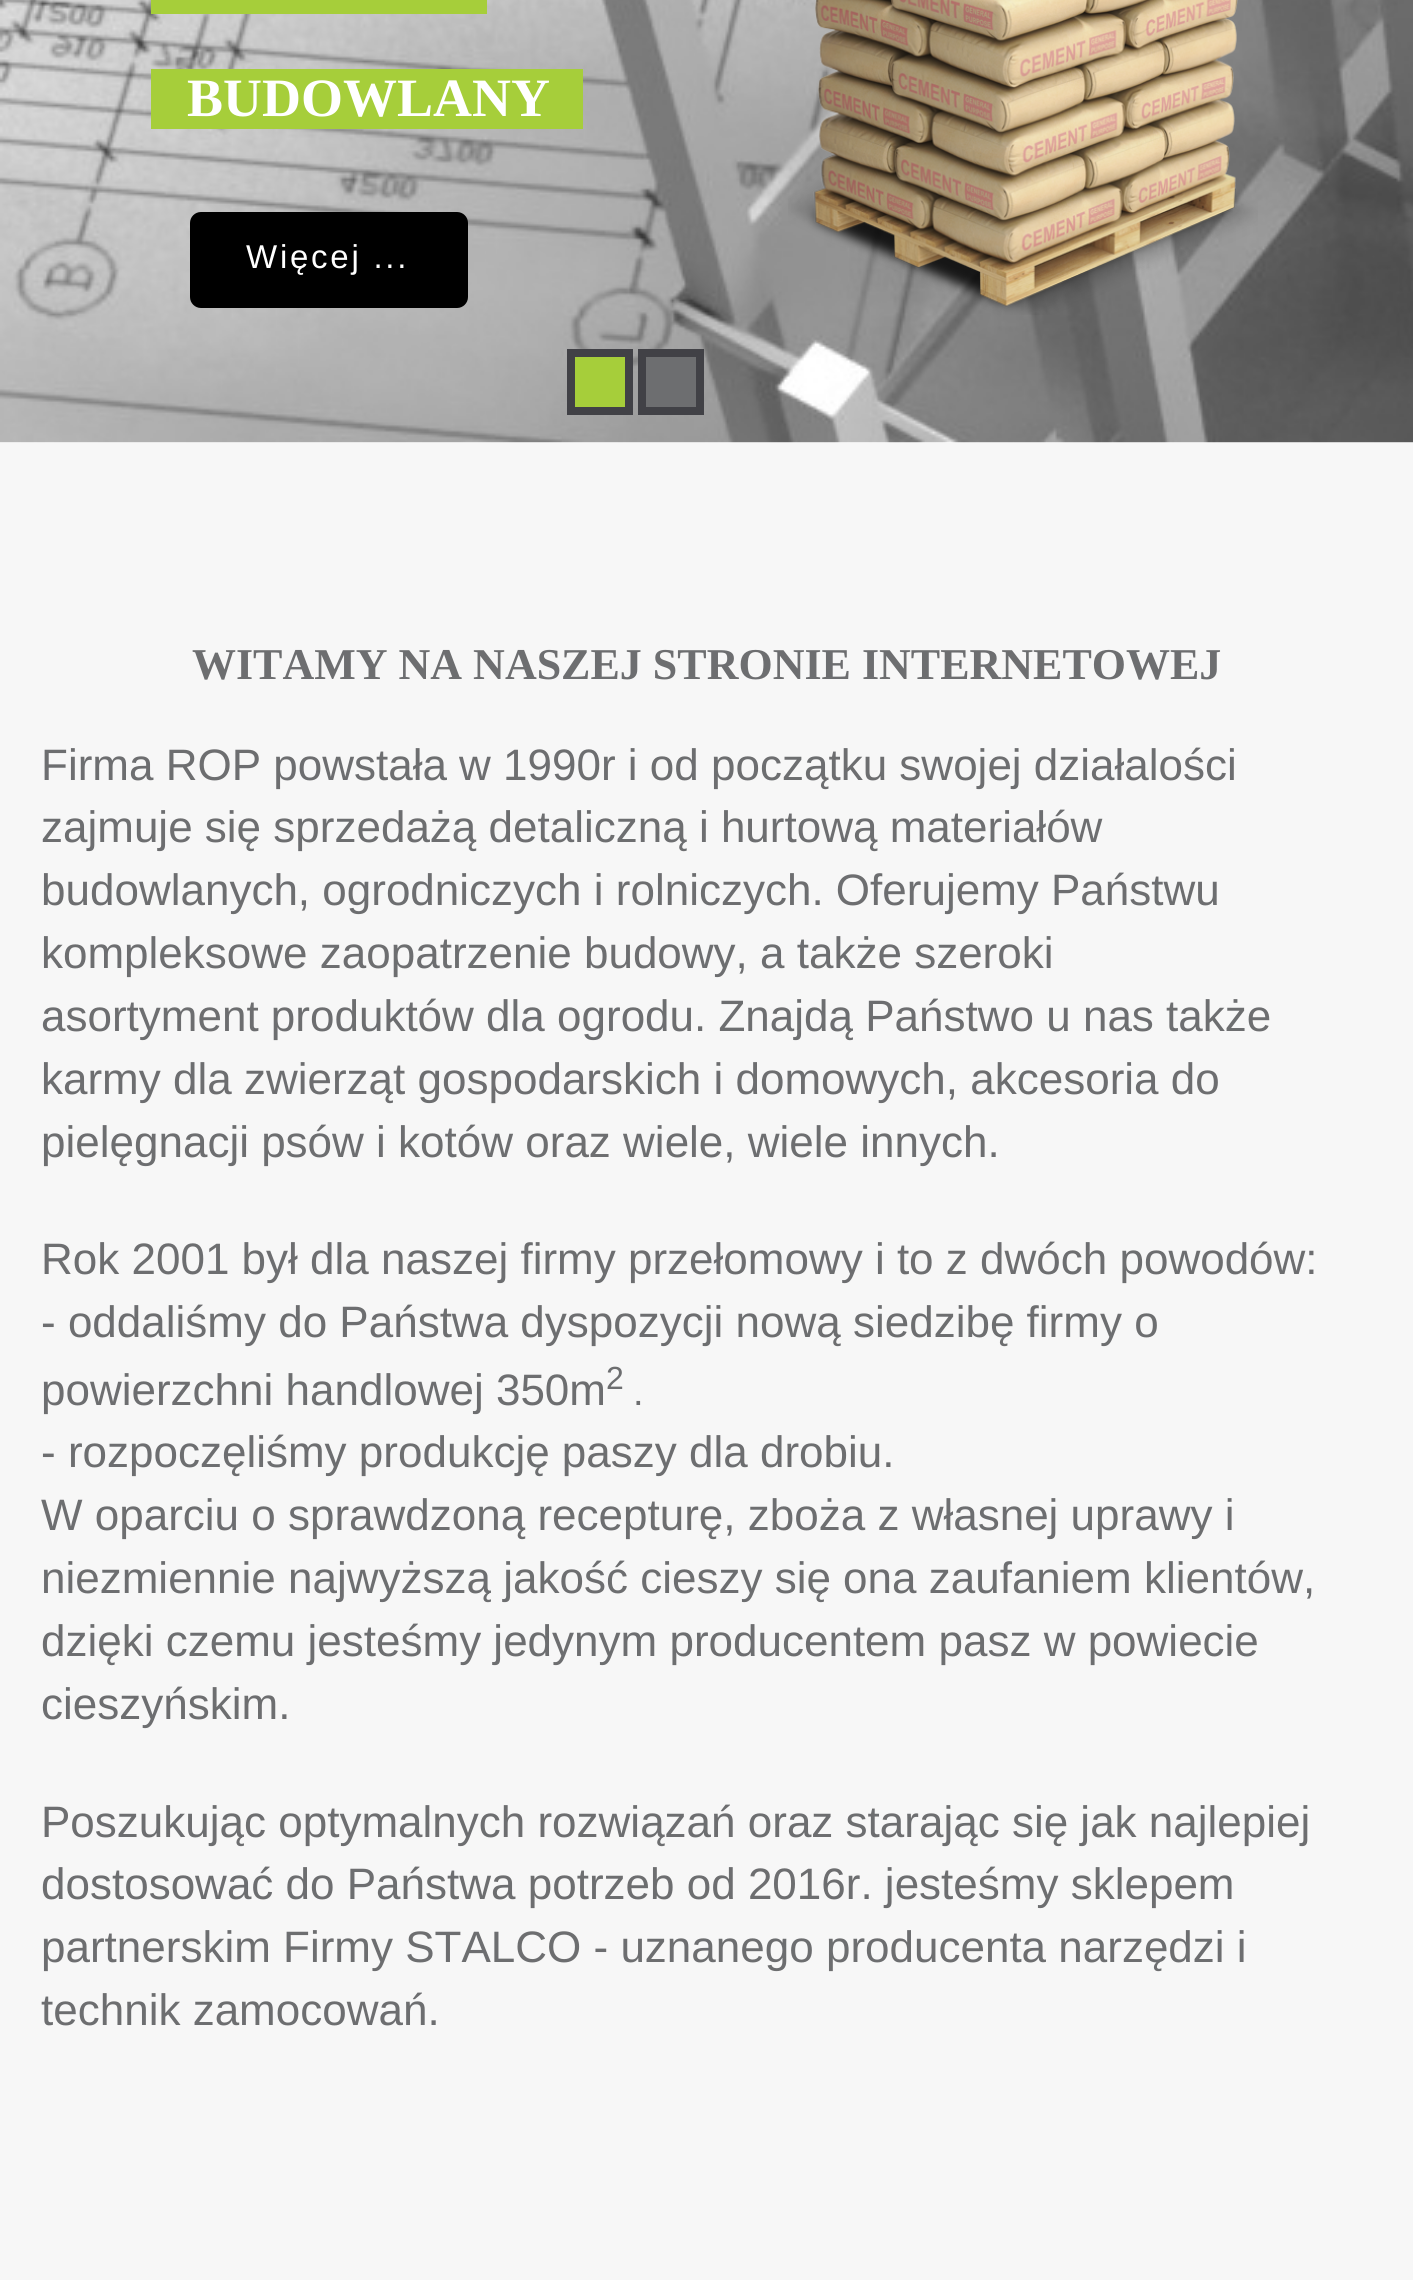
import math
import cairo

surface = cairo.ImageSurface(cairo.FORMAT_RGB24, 1413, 2280)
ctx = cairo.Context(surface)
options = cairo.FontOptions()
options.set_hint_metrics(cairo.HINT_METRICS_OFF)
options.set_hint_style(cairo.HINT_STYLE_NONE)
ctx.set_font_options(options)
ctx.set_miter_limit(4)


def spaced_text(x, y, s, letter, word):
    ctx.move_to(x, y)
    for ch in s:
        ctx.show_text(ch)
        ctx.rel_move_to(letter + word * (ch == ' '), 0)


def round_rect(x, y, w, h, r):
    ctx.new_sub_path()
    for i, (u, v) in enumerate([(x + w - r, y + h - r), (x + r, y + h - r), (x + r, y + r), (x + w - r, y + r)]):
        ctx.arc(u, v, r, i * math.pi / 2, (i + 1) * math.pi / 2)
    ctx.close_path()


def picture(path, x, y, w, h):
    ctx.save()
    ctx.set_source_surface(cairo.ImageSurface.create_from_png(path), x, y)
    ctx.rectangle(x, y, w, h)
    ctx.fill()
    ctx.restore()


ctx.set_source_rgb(1, 1, 1)
ctx.paint()
picture("img1.png", 0, 0, 1413, 443)
ctx.set_source_rgb(0.651, 0.808, 0.227)
ctx.rectangle(151, 0, 336, 14)
ctx.fill()
ctx.rectangle(151, 69, 432, 60)
ctx.fill()
ctx.select_font_face("Liberation Serif", cairo.FONT_SLANT_NORMAL, cairo.FONT_WEIGHT_BOLD)
ctx.set_font_size(54)
ctx.set_source_rgb(1, 1, 1)
ctx.move_to(187, 116)
ctx.show_text("BUDOWLANY")
ctx.set_source_rgb(0, 0, 0)
round_rect(190, 212, 278, 96, 11)
ctx.fill()
ctx.select_font_face("Liberation Sans")
ctx.set_font_size(33)
ctx.set_source_rgb(1, 1, 1)
spaced_text(246, 268, "Więcej ...", 2.75, 0)
picture("img2.png", 788, 0, 470, 315)
ctx.set_source_rgb(0.651, 0.808, 0.227)
ctx.rectangle(571, 353, 58, 58)
ctx.fill_preserve()
ctx.set_source_rgb(0.255, 0.255, 0.275)
ctx.set_line_width(8)
ctx.stroke()
ctx.set_source_rgb(0.427, 0.431, 0.439)
ctx.rectangle(642, 353, 58, 58)
ctx.fill_preserve()
ctx.set_source_rgb(0.255, 0.255, 0.275)
ctx.stroke()
ctx.set_source_rgb(0.965, 0.965, 0.965)
ctx.rectangle(0, 443, 1413, 1837)
ctx.fill()
ctx.select_font_face("Liberation Serif", cairo.FONT_SLANT_NORMAL, cairo.FONT_WEIGHT_BOLD)
ctx.set_font_size(44)
ctx.set_source_rgb(0.427, 0.431, 0.439)
ctx.move_to(192, 679)
ctx.show_text("WITAMY NA NASZEJ STRONIE INTERNETOWEJ")
ctx.select_font_face("Liberation Sans")
ctx.move_to(41, 780)
ctx.show_text("Firma ROP powstała w 1990r i od początku swojej działalości")
ctx.move_to(41, 842)
ctx.show_text("zajmuje się sprzedażą detaliczną i hurtową materiałów")
ctx.move_to(41, 905)
ctx.show_text("budowlanych, ogrodniczych i rolniczych. Oferujemy Państwu")
ctx.move_to(41, 968)
ctx.show_text("kompleksowe zaopatrzenie budowy, a także szeroki")
ctx.move_to(41, 1031)
ctx.show_text("asortyment produktów dla ogrodu. Znajdą Państwo u nas także")
ctx.move_to(41, 1094)
ctx.show_text("karmy dla zwierząt gospodarskich i domowych, akcesoria do")
ctx.move_to(41, 1157)
ctx.show_text("pielęgnacji psów i kotów oraz wiele, wiele innych.")
ctx.move_to(41, 1274)
ctx.show_text("Rok 2001 był dla naszej firmy przełomowy i to z dwóch powodów:")
ctx.move_to(41, 1337)
ctx.show_text("- oddaliśmy do Państwa dyspozycji nową siedzibę firmy o")
ctx.move_to(41, 1405)
ctx.show_text("powierzchni handlowej 350m")
ctx.set_font_size(32)
ctx.move_to(606, 1389)
ctx.show_text("2")
ctx.set_font_size(38)
ctx.move_to(633, 1405)
ctx.show_text(".")
ctx.set_font_size(44)
ctx.move_to(41, 1467)
ctx.show_text("- rozpoczęliśmy produkcję paszy dla drobiu.")
ctx.move_to(41, 1530)
ctx.show_text("W oparciu o sprawdzoną recepturę, zboża z własnej uprawy i")
ctx.move_to(41, 1593)
ctx.show_text("niezmiennie najwyższą jakość cieszy się ona zaufaniem klientów,")
ctx.move_to(41, 1656)
ctx.show_text("dzięki czemu jesteśmy jedynym producentem pasz w powiecie")
ctx.move_to(41, 1719)
ctx.show_text("cieszyńskim.")
ctx.move_to(41, 1837)
ctx.show_text("Poszukując optymalnych rozwiązań oraz starając się jak najlepiej")
ctx.move_to(41, 1899)
ctx.show_text("dostosować do Państwa potrzeb od 2016r. jesteśmy sklepem")
ctx.move_to(41, 1962)
ctx.show_text("partnerskim Firmy STALCO - uznanego producenta narzędzi i")
ctx.move_to(41, 2025)
ctx.show_text("technik zamocowań.")
surface.write_to_png("page.png")
